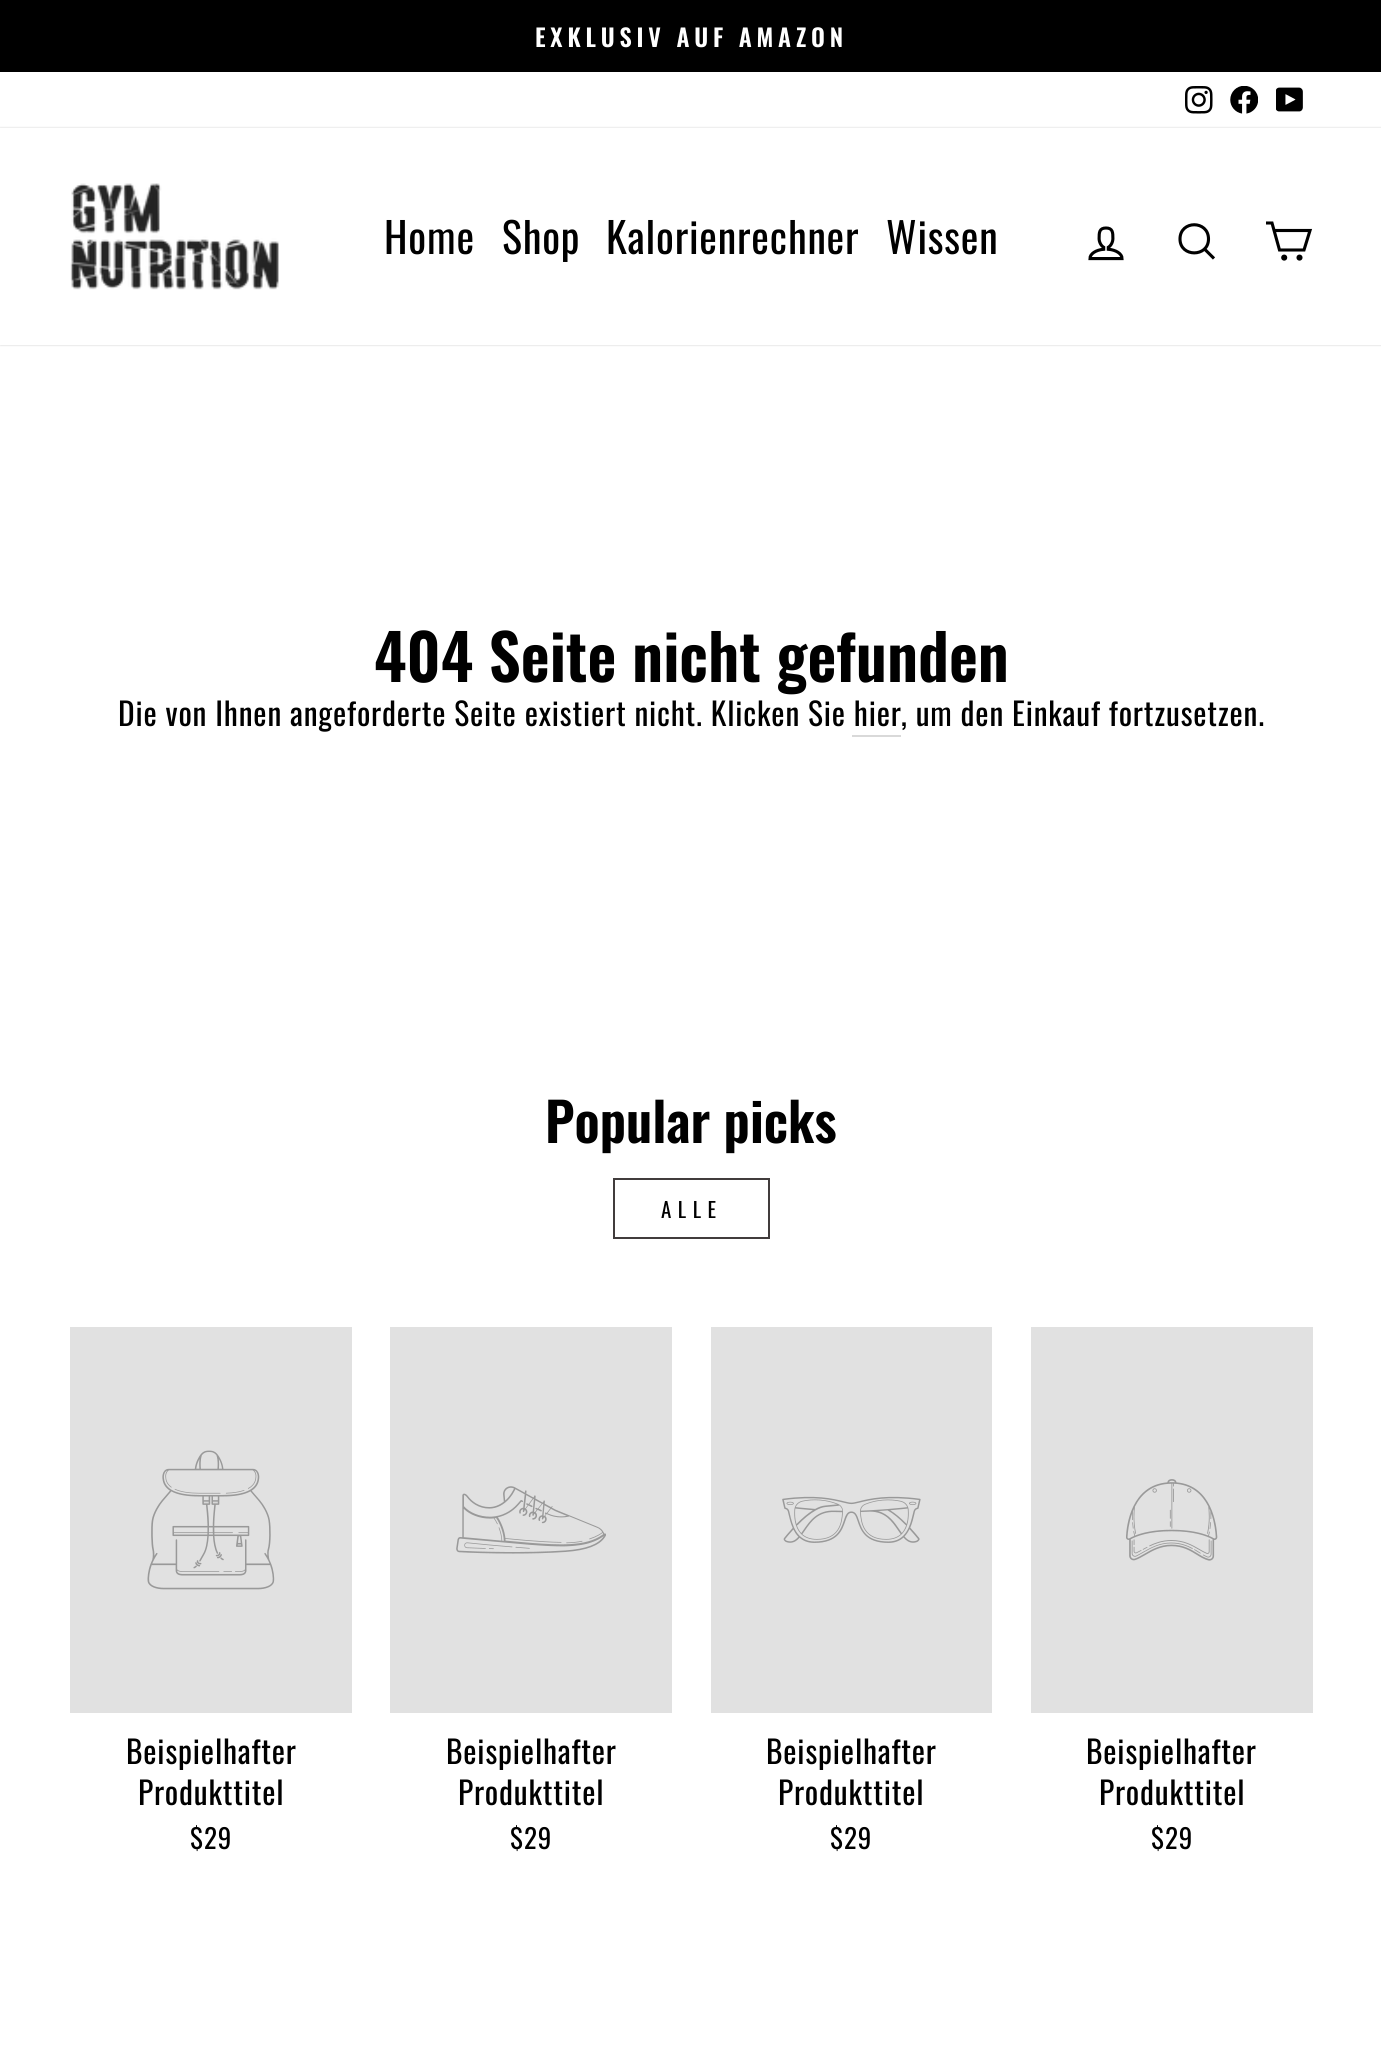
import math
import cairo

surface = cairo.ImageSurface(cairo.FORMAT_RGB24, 1381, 2047)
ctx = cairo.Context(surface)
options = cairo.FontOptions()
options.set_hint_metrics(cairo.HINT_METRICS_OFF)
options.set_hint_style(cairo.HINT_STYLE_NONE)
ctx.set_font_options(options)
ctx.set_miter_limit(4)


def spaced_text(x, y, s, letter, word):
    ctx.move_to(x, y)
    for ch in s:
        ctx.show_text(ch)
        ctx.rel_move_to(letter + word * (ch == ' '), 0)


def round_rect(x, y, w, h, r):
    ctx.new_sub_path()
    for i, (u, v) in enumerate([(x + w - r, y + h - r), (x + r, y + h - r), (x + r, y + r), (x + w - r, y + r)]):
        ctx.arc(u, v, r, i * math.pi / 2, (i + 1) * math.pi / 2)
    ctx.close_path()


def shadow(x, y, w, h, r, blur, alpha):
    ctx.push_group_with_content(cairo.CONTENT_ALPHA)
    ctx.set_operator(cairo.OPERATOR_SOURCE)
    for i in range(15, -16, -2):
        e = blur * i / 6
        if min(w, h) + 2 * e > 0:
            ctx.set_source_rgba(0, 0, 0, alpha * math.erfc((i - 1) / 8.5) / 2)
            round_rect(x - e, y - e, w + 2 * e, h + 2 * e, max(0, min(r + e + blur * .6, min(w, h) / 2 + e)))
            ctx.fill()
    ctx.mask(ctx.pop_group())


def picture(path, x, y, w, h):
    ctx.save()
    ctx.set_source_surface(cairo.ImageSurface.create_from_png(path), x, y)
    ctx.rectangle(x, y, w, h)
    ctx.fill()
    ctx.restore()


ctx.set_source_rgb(1, 1, 1)
ctx.paint()
ctx.set_source_rgb(0, 0, 0)
ctx.rectangle(0, 0, 1381, 72)
ctx.fill()
ctx.select_font_face("Oswald SemiBold")
ctx.set_font_size(24.1)
ctx.set_source_rgb(1, 1, 1)
spaced_text(535, 47, "EXKLUSIV AUF AMAZON", 4.8, 0)
picture("img1.png", 1185, 86, 28, 28)
picture("img2.png", 1230, 86, 28, 28)
picture("img3.png", 1276, 87, 27, 25)
ctx.set_source_rgb(0, 0, 0)
shadow(0, 128, 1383, 217, 0, 1, 0.2)
ctx.set_source_rgb(1, 1, 1)
ctx.rectangle(0, 128, 1381, 217)
ctx.fill()
picture("img4.png", 70, 183, 209, 107)
ctx.select_font_face("Oswald")
ctx.set_font_size(42)
ctx.set_source_rgb(0, 0, 0)
spaced_text(384, 254, "Home", 0.8, 0)
spaced_text(502, 254, "Shop", 0.8, 0)
spaced_text(606, 254, "Kalorienrechner", 0.8, 0)
spaced_text(886, 254, "Wissen", 0.8, 0)
picture("img5.png", 1088, 226, 36, 35)
ctx.new_path()
ctx.move_to(1208.5, 239)
ctx.curve_to(1208.5, 257.5, 1180, 257.5, 1180, 239)
ctx.curve_to(1180, 220, 1208.5, 220, 1208.5, 239)
ctx.close_path()
ctx.move_to(1214, 258.5)
ctx.line_to(1204.5, 249)
ctx.set_line_width(3.1)
ctx.stroke()
ctx.new_path()
ctx.move_to(1274, 230.5)
ctx.line_to(1310, 230.5)
ctx.line_to(1304, 250)
ctx.line_to(1279.5, 250)
ctx.line_to(1272, 223)
ctx.line_to(1266, 223)
ctx.stroke()
ctx.arc(1284.2, 257.6, 1.5, 0, 2 * math.pi)
ctx.stroke()
ctx.arc(1299.5, 257.6, 1.5, 0, 2 * math.pi)
ctx.stroke()
ctx.select_font_face("Oswald SemiBold")
ctx.set_font_size(63)
ctx.move_to(374, 682)
ctx.show_text("404 Seite nicht gefunden")
ctx.select_font_face("Oswald")
ctx.set_font_size(31.5)
spaced_text(118, 726, "Die von Ihnen angeforderte Seite existiert nicht. Klicken Sie hier", 0.8, 0)
spaced_text(901, 726, ", um den Einkauf fortzusetzen.", 0.8, 0)
ctx.set_source_rgb(0.851, 0.851, 0.851)
ctx.rectangle(852, 735, 49, 2)
ctx.fill()
ctx.select_font_face("Oswald SemiBold")
ctx.set_font_size(53.5)
ctx.set_source_rgb(0, 0, 0)
ctx.move_to(545, 1143)
ctx.show_text("Popular picks")
ctx.rectangle(614, 1179, 155, 59)
ctx.set_source_rgb(0.255, 0.235, 0.235)
ctx.set_line_width(2)
ctx.stroke()
ctx.select_font_face("Oswald")
ctx.set_font_size(21)
ctx.set_source_rgb(0, 0, 0)
spaced_text(661, 1218, "ALLE", 6.5, 0)
ctx.set_source_rgb(0.882, 0.882, 0.882)
ctx.rectangle(70, 1327, 282, 386)
ctx.fill()
picture("img6.png", 147, 1450, 128, 140)
ctx.set_font_size(31.5)
ctx.set_source_rgb(0, 0, 0)
spaced_text(126, 1764, "Beispielhafter", 0.8, 0)
spaced_text(138, 1805, "Produkttitel", 0.8, 0)
ctx.set_font_size(27)
spaced_text(190, 1849, "$29", 0.8, 0)
ctx.set_source_rgb(0.882, 0.882, 0.882)
ctx.rectangle(390, 1327, 282, 386)
ctx.fill()
picture("img7.png", 456, 1486, 150, 68)
ctx.set_font_size(31.5)
ctx.set_source_rgb(0, 0, 0)
spaced_text(446, 1764, "Beispielhafter", 0.8, 0)
spaced_text(458, 1805, "Produkttitel", 0.8, 0)
ctx.set_font_size(27)
spaced_text(510, 1849, "$29", 0.8, 0)
ctx.set_source_rgb(0.882, 0.882, 0.882)
ctx.rectangle(711, 1327, 281, 386)
ctx.fill()
picture("img8.png", 782, 1496, 139, 47)
ctx.set_font_size(31.5)
ctx.set_source_rgb(0, 0, 0)
spaced_text(766, 1764, "Beispielhafter", 0.8, 0)
spaced_text(778, 1805, "Produkttitel", 0.8, 0)
ctx.set_font_size(27)
spaced_text(830, 1849, "$29", 0.8, 0)
ctx.set_source_rgb(0.882, 0.882, 0.882)
ctx.rectangle(1031, 1327, 282, 386)
ctx.fill()
picture("img9.png", 1126, 1479, 92, 82)
ctx.set_font_size(31.5)
ctx.set_source_rgb(0, 0, 0)
spaced_text(1086, 1764, "Beispielhafter", 0.8, 0)
spaced_text(1099, 1805, "Produkttitel", 0.8, 0)
ctx.set_font_size(27)
spaced_text(1151, 1849, "$29", 0.8, 0)
surface.write_to_png("page.png")
